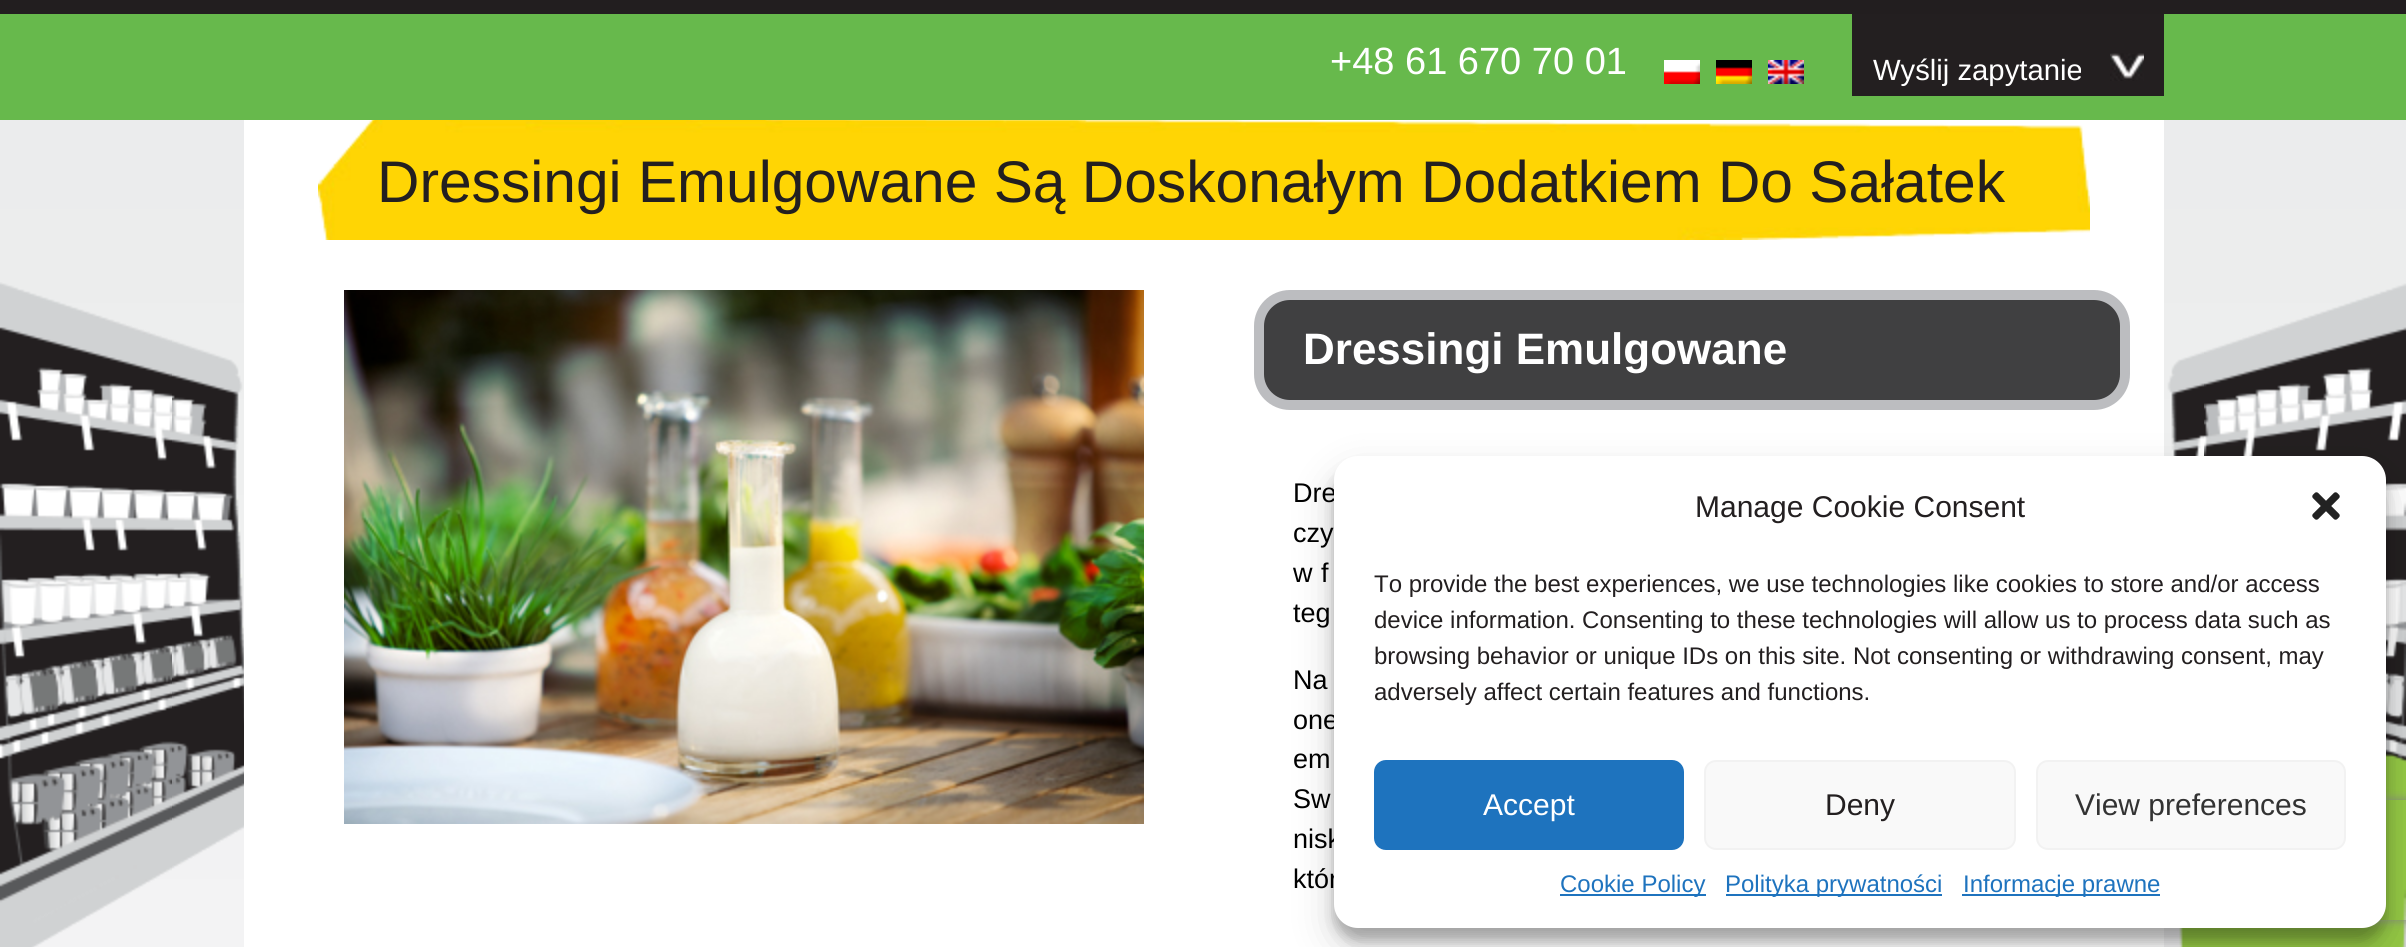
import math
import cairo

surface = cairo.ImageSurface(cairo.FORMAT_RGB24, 2406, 947)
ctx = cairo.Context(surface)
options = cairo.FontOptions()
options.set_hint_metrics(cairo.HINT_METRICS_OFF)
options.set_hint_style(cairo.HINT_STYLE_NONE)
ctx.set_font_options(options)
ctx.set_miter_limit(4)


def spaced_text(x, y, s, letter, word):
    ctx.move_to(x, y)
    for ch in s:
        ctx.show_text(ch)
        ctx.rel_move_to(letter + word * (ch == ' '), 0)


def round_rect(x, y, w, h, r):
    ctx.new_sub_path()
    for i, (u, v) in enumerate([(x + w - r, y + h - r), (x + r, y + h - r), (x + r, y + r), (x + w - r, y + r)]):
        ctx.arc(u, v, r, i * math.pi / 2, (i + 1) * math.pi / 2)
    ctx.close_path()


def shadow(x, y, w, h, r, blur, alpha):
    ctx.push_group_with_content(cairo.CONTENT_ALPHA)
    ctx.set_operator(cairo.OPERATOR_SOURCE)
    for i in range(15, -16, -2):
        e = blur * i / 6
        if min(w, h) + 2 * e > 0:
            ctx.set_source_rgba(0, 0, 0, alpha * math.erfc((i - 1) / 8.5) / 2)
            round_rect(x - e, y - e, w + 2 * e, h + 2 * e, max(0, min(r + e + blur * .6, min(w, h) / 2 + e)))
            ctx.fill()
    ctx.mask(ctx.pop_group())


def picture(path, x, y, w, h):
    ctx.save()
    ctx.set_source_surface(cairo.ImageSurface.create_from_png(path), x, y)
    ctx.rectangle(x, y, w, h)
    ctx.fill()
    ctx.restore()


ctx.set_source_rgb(1, 1, 1)
ctx.paint()
picture("img1.png", 0, 120, 2406, 827)
ctx.set_source_rgb(0.404, 0.725, 0.298)
ctx.rectangle(0, 14, 2406, 106)
ctx.fill()
ctx.set_source_rgb(0.133, 0.118, 0.122)
ctx.rectangle(0, 0, 2406, 14)
ctx.fill()
ctx.select_font_face("Liberation Sans")
ctx.set_font_size(38)
ctx.set_source_rgb(1, 1, 1)
ctx.move_to(1330, 74)
ctx.show_text("+48 61 670 70 01")
picture("img2.png", 1664, 60, 36, 24)
picture("img3.png", 1716, 60, 36, 24)
picture("img4.png", 1768, 60, 36, 24)
ctx.set_source_rgb(0.137, 0.122, 0.125)
ctx.rectangle(1852, 14, 312, 82)
ctx.fill()
picture("img5.png", 2110, 53, 34, 28)
ctx.set_font_size(29.25)
ctx.set_source_rgb(1, 1, 1)
ctx.move_to(1873, 80)
ctx.show_text("Wyślij zapytanie")
picture("img8.png", 0, 282, 2406, 665)
ctx.rectangle(244, 120, 1920, 827)
ctx.fill()
picture("img6.png", 318, 120, 1772, 120)
ctx.set_font_size(58.7)
ctx.set_source_rgb(0.137, 0.122, 0.125)
ctx.move_to(377, 202)
ctx.show_text("Dressingi Emulgowane Są Doskonałym Dodatkiem Do Sałatek")
picture("img7.png", 344, 290, 800, 534)
ctx.set_source_rgb(0.251, 0.251, 0.255)
round_rect(1259, 295, 866, 110, 31)
ctx.fill_preserve()
ctx.set_source_rgb(0.737, 0.741, 0.753)
ctx.set_line_width(10)
ctx.stroke()
ctx.select_font_face("Liberation Sans", cairo.FONT_SLANT_NORMAL, cairo.FONT_WEIGHT_BOLD)
ctx.set_font_size(44)
ctx.set_source_rgb(1, 1, 1)
ctx.move_to(1303, 364)
ctx.show_text("Dressingi Emulgowane")
ctx.select_font_face("Liberation Sans")
ctx.set_font_size(27)
ctx.set_source_rgb(0, 0, 0)
spaced_text(1293, 502, "Dre", 0, 4)
spaced_text(1293, 542, "czy", 0, 2)
spaced_text(1293, 582, "w f", 0, 1)
ctx.move_to(1293, 622)
ctx.show_text("teg")
spaced_text(1293, 689, "Na", 0, 6)
spaced_text(1293, 729, "one", 0, 5)
spaced_text(1293, 768, "em", 0, 2)
spaced_text(1293, 808, "Sw", 0, 3)
spaced_text(1293, 848, "nisk", 0, 8)
ctx.move_to(1293, 888)
ctx.show_text("któr")
ctx.set_source_rgb(0, 0, 0)
shadow(1334, 468, 1052, 472, 24, 6, 0.23)
shadow(1334, 476, 1052, 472, 24, 20, 0.19)
ctx.save()
ctx.set_fill_rule(cairo.FILL_RULE_EVEN_ODD)
ctx.new_path()
ctx.move_to(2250, 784)
ctx.line_to(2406, 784)
ctx.line_to(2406, 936)
ctx.line_to(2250, 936)
ctx.close_path()
ctx.move_to(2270, 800)
ctx.line_to(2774, 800)
ctx.curve_to(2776, 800, 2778, 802, 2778, 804)
ctx.line_to(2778, 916)
ctx.curve_to(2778, 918, 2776, 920, 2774, 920)
ctx.line_to(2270, 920)
ctx.curve_to(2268, 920, 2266, 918, 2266, 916)
ctx.line_to(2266, 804)
ctx.curve_to(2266, 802, 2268, 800, 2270, 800)
ctx.close_path()
ctx.clip()
ctx.set_source_rgb(0.502, 0.502, 0.502)
shadow(2266, 800, 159, 120, 4, 5, 1)
ctx.restore()
ctx.set_source_rgb(1, 1, 1)
round_rect(1334, 456, 1052, 472, 24)
ctx.fill()
ctx.set_font_size(30)
ctx.set_source_rgb(0.137, 0.122, 0.125)
ctx.move_to(1695, 517)
ctx.show_text("Manage Cookie Consent")
picture("img9.png", 2312, 492, 28, 28)
ctx.set_font_size(24)
ctx.move_to(1374, 592)
ctx.show_text("To provide the best experiences, we use technologies like cookies to store and/or access")
ctx.move_to(1374, 628)
ctx.show_text("device information. Consenting to these technologies will allow us to process data such as")
ctx.move_to(1374, 664)
ctx.show_text("browsing behavior or unique IDs on this site. Not consenting or withdrawing consent, may")
ctx.move_to(1374, 700)
ctx.show_text("adversely affect certain features and functions.")
ctx.set_source_rgb(0.118, 0.451, 0.745)
round_rect(1375, 761, 308, 88, 11)
ctx.fill_preserve()
ctx.set_line_width(2)
ctx.stroke()
ctx.set_font_size(30)
ctx.set_source_rgb(1, 1, 1)
ctx.move_to(1483, 815)
ctx.show_text("Accept")
ctx.set_source_rgb(0.976, 0.976, 0.976)
round_rect(1705, 761, 310, 88, 11)
ctx.fill_preserve()
ctx.set_source_rgb(0.949, 0.949, 0.949)
ctx.stroke()
ctx.set_source_rgb(0.137, 0.122, 0.125)
ctx.move_to(1825, 815)
ctx.show_text("Deny")
ctx.set_source_rgb(0.976, 0.976, 0.976)
round_rect(2037, 761, 308, 88, 11)
ctx.fill_preserve()
ctx.set_source_rgb(0.949, 0.949, 0.949)
ctx.stroke()
ctx.set_source_rgb(0.2, 0.2, 0.2)
ctx.move_to(2075, 815)
ctx.show_text("View preferences")
ctx.set_source_rgb(0.118, 0.451, 0.745)
ctx.rectangle(1560, 894, 146, 2)
ctx.fill()
ctx.set_font_size(24)
ctx.move_to(1560, 892)
ctx.show_text("Cookie Policy")
ctx.rectangle(1726, 894, 216, 2)
ctx.fill()
ctx.move_to(1725, 892)
ctx.show_text("Polityka prywatności")
ctx.rectangle(1962, 894, 198, 2)
ctx.fill()
ctx.move_to(1963, 892)
ctx.show_text("Informacje prawne")
surface.write_to_png("page.png")
